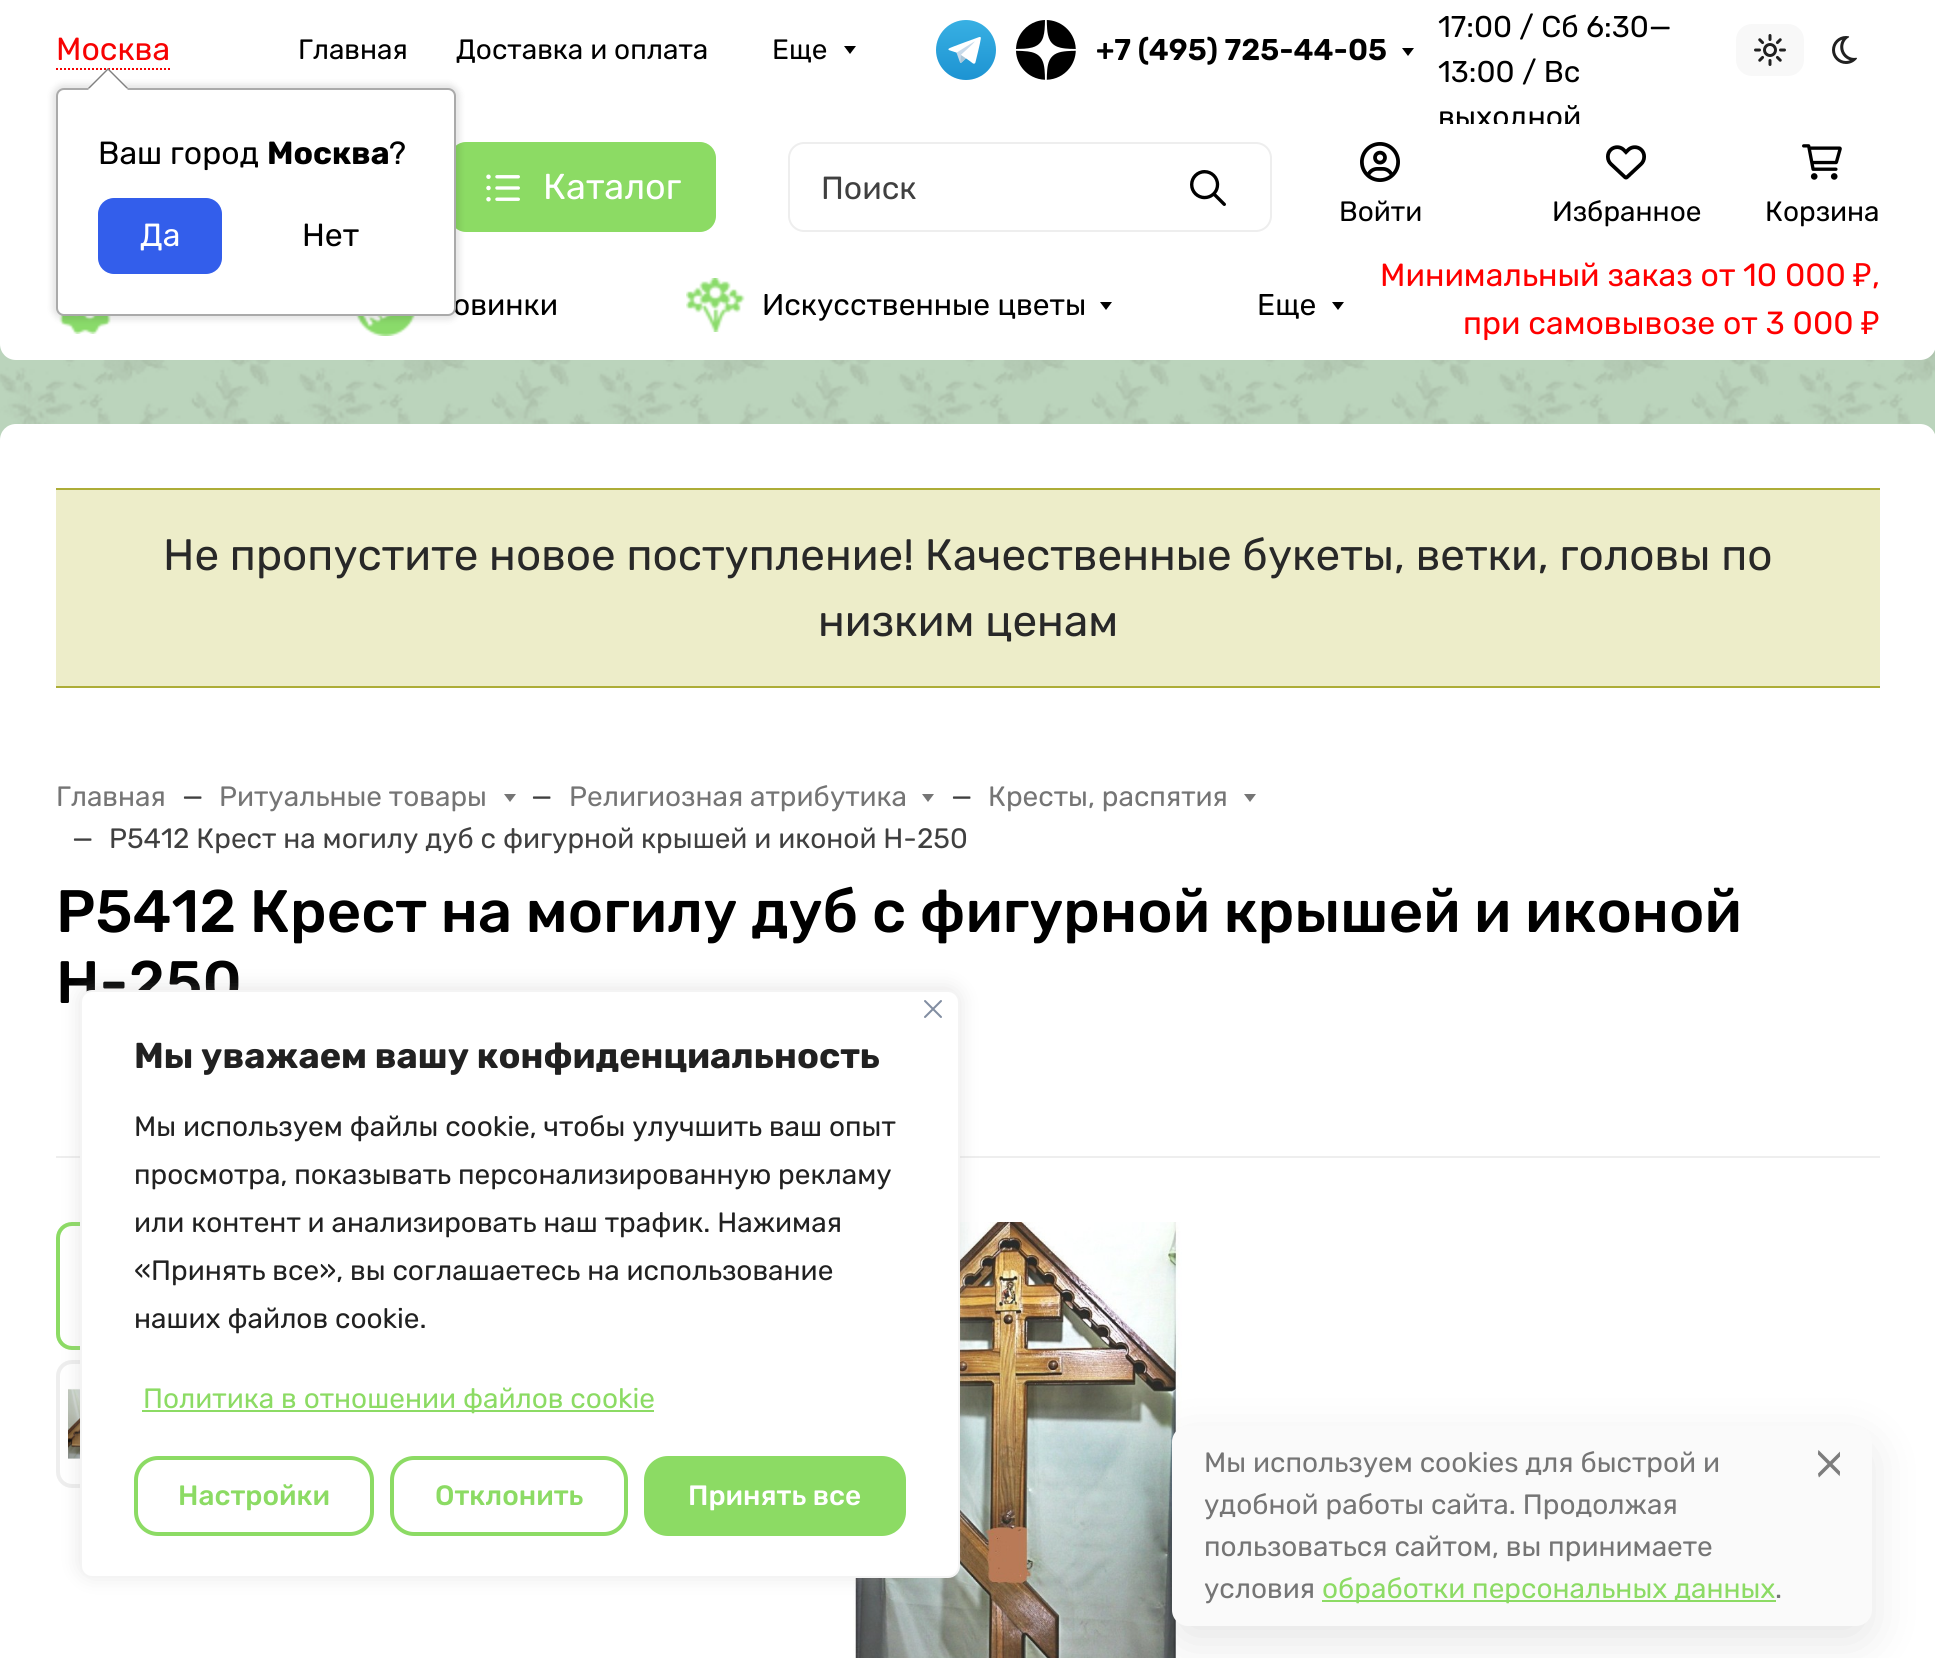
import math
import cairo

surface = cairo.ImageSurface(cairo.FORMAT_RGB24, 1935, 1658)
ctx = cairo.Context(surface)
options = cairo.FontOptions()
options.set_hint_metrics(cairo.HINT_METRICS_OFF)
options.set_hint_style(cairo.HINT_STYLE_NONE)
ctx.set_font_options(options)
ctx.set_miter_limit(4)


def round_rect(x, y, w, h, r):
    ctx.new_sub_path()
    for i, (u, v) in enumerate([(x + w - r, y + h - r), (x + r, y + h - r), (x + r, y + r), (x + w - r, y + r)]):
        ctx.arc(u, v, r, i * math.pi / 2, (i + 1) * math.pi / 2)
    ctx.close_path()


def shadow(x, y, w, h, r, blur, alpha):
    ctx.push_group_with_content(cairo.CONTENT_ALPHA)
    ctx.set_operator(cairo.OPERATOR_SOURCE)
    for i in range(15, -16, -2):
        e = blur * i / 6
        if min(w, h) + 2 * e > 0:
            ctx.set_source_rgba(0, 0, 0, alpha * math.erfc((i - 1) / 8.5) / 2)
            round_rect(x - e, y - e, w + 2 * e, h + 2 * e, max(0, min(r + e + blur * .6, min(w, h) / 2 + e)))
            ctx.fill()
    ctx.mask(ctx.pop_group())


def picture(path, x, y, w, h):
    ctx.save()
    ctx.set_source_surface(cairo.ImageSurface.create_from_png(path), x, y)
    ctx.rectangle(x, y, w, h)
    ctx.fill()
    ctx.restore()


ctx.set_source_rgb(1, 1, 1)
ctx.paint()
picture("img1.png", 0, 344, 1935, 96)
ctx.select_font_face("Rubik Light")
ctx.set_font_size(32)
ctx.set_source_rgb(0.965, 0.008, 0.008)
ctx.move_to(56, 60)
ctx.show_text("Москва")
ctx.new_path()
ctx.move_to(56, 69)
ctx.line_to(170, 69)
ctx.set_dash([2, 2])
ctx.stroke()
ctx.set_source_rgb(0.549, 0.859, 0.392)
round_rect(451, 143, 264, 88, 15)
ctx.fill_preserve()
ctx.set_dash([])
ctx.stroke()
ctx.set_source_rgb(1, 1, 1)
ctx.new_path()
ctx.move_to(0, 252)
ctx.line_to(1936, 252)
ctx.line_to(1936, 344)
ctx.curve_to(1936, 353, 1929, 360, 1920, 360)
ctx.line_to(16, 360)
ctx.curve_to(7, 360, 0, 353, 0, 344)
ctx.close_path()
ctx.fill()
picture("img11.png", 56, 308, 55, 26)
picture("img12.png", 356, 316, 59, 20)
ctx.set_source_rgb(0, 0, 0)
shadow(52, 84, 408, 236, 12, 3, 0.1)
ctx.set_font_size(30)
ctx.set_source_rgb(0, 0, 0)
ctx.move_to(453, 315)
ctx.show_text("овинки")
ctx.set_source_rgb(1, 1, 1)
round_rect(57, 89, 398, 226, 7)
ctx.fill_preserve()
ctx.set_source_rgb(0.667, 0.667, 0.667)
ctx.stroke()
ctx.set_source_rgb(0.502, 0.502, 0.502)
ctx.new_path()
ctx.move_to(128, 88)
ctx.line_to(88, 88)
ctx.line_to(108, 68)
ctx.close_path()
ctx.fill()
ctx.set_source_rgb(1, 1, 1)
ctx.new_path()
ctx.move_to(128, 90)
ctx.line_to(88, 90)
ctx.line_to(108, 70)
ctx.close_path()
ctx.fill()
ctx.set_font_size(32)
ctx.set_source_rgb(0, 0, 0)
ctx.move_to(98, 164)
ctx.show_text("Ваш город")
ctx.select_font_face("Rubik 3 Light")
ctx.move_to(267, 164)
ctx.show_text("Москва")
ctx.select_font_face("Rubik Light")
ctx.move_to(389, 164)
ctx.show_text("?")
ctx.set_source_rgb(0.2, 0.369, 0.918)
round_rect(99, 199, 122, 74, 15)
ctx.fill_preserve()
ctx.stroke()
ctx.set_source_rgb(1, 1, 1)
ctx.move_to(140, 246)
ctx.show_text("Да")
ctx.set_source_rgb(0, 0, 0)
ctx.move_to(302, 246)
ctx.show_text("Нет")
ctx.set_font_size(28)
ctx.move_to(298, 59)
ctx.show_text("Главная")
ctx.move_to(456, 59)
ctx.show_text("Доставка и оплата")
ctx.move_to(772, 59)
ctx.show_text("Еще")
ctx.new_path()
ctx.move_to(844, 46)
ctx.line_to(856, 46)
ctx.line_to(850, 54)
ctx.close_path()
ctx.fill()
picture("img2.png", 936, 20, 60, 60)
picture("img3.png", 1016, 20, 60, 60)
ctx.select_font_face("Rubik SemiBold")
ctx.set_font_size(30)
ctx.move_to(1096, 60)
ctx.show_text("+7 (495) 725-44-05")
ctx.new_path()
ctx.move_to(1402, 48)
ctx.line_to(1414, 48)
ctx.line_to(1408, 56)
ctx.close_path()
ctx.fill()
ctx.select_font_face("Rubik Light")
ctx.move_to(1438, 37)
ctx.show_text("17:00 / Сб 6:30—")
ctx.move_to(1438, 82)
ctx.show_text("13:00 / Вс")
ctx.move_to(1438, 127)
ctx.show_text("выходной")
ctx.set_source_rgb(0.969, 0.969, 0.969)
round_rect(1736, 24, 68, 52, 16)
ctx.fill()
picture("img4.png", 1754, 34, 32, 32)
picture("img5.png", 1832, 36, 25, 28)
ctx.set_source_rgb(1, 1, 1)
ctx.rectangle(1440, 124, 139, 7)
ctx.fill()
picture("img6.png", 486, 174, 34, 28)
ctx.set_font_size(36)
ctx.move_to(543, 199)
ctx.show_text("Каталог")
round_rect(789, 143, 482, 88, 15)
ctx.set_source_rgb(0.933, 0.933, 0.933)
ctx.stroke()
ctx.set_font_size(32)
ctx.set_source_rgb(0.251, 0.251, 0.251)
ctx.move_to(821, 199)
ctx.show_text("Поиск")
picture("img7.png", 1190, 170, 36, 36)
picture("img8.png", 1360, 142, 40, 40)
ctx.set_font_size(28)
ctx.set_source_rgb(0, 0, 0)
ctx.move_to(1339, 221)
ctx.show_text("Войти")
picture("img9.png", 1606, 145, 40, 35)
ctx.move_to(1552, 221)
ctx.show_text("Избранное")
picture("img10.png", 1802, 144, 40, 36)
ctx.move_to(1765, 221)
ctx.show_text("Корзина")
picture("img13.png", 686, 278, 59, 54)
ctx.set_font_size(30)
ctx.move_to(762, 315)
ctx.show_text("Искусственные цветы")
ctx.new_path()
ctx.move_to(1100, 302)
ctx.line_to(1112, 302)
ctx.line_to(1106, 310)
ctx.close_path()
ctx.fill()
ctx.move_to(1257, 315)
ctx.show_text("Еще")
ctx.new_path()
ctx.move_to(1332, 302)
ctx.line_to(1344, 302)
ctx.line_to(1338, 310)
ctx.close_path()
ctx.fill()
ctx.set_font_size(32)
ctx.set_source_rgb(1, 0, 0)
ctx.move_to(1380, 286)
ctx.show_text("Минимальный заказ от 10 000")
ctx.select_font_face("Noto Sans")
ctx.move_to(1853, 286)
ctx.show_text("₽")
ctx.select_font_face("Rubik Light")
ctx.move_to(1872, 286)
ctx.show_text(",")
ctx.move_to(1463, 334)
ctx.show_text("при самовывозе от 3 000")
ctx.select_font_face("Noto Sans")
ctx.move_to(1861, 334)
ctx.show_text("₽")
ctx.set_source_rgb(1, 1, 1)
ctx.new_path()
ctx.move_to(16, 424)
ctx.line_to(1920, 424)
ctx.curve_to(1929, 424, 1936, 431, 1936, 440)
ctx.line_to(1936, 752)
ctx.line_to(0, 752)
ctx.line_to(0, 440)
ctx.curve_to(0, 431, 7, 424, 16, 424)
ctx.close_path()
ctx.fill()
ctx.set_source_rgb(0.929, 0.929, 0.788)
ctx.rectangle(56, 490, 1824, 196)
ctx.fill()
ctx.set_source_rgb(0.678, 0.678, 0.216)
ctx.rectangle(56, 488, 1824, 2)
ctx.fill()
ctx.rectangle(56, 686, 1824, 2)
ctx.fill()
ctx.select_font_face("Rubik Light")
ctx.set_font_size(44)
ctx.set_source_rgb(0.157, 0.157, 0.157)
ctx.move_to(163, 570)
ctx.show_text("Не пропустите новое поступление! Качественные букеты, ветки, головы по")
ctx.move_to(818, 636)
ctx.show_text("низким ценам")
ctx.set_font_size(28)
ctx.set_source_rgb(0.459, 0.459, 0.459)
ctx.move_to(56, 806)
ctx.show_text("Главная")
ctx.set_source_rgb(0.251, 0.251, 0.251)
ctx.move_to(182, 806)
ctx.show_text("—")
ctx.set_source_rgb(0.459, 0.459, 0.459)
ctx.move_to(219, 806)
ctx.show_text("Ритуальные товары")
ctx.new_path()
ctx.move_to(504, 794)
ctx.line_to(516, 794)
ctx.line_to(510, 802)
ctx.close_path()
ctx.fill()
ctx.set_source_rgb(0.251, 0.251, 0.251)
ctx.move_to(531, 806)
ctx.show_text("—")
ctx.set_source_rgb(0.459, 0.459, 0.459)
ctx.move_to(569, 806)
ctx.show_text("Религиозная атрибутика")
ctx.new_path()
ctx.move_to(922, 794)
ctx.line_to(934, 794)
ctx.line_to(928, 802)
ctx.close_path()
ctx.fill()
ctx.set_source_rgb(0.251, 0.251, 0.251)
ctx.move_to(951, 806)
ctx.show_text("—")
ctx.set_source_rgb(0.459, 0.459, 0.459)
ctx.move_to(988, 806)
ctx.show_text("Кресты, распятия")
ctx.new_path()
ctx.move_to(1244, 794)
ctx.line_to(1256, 794)
ctx.line_to(1250, 802)
ctx.close_path()
ctx.fill()
ctx.set_source_rgb(0.251, 0.251, 0.251)
ctx.move_to(72, 848)
ctx.show_text("—")
ctx.move_to(109, 848)
ctx.show_text("Р5412 Крест на могилу дуб с фигурной крышей и иконой Н-250")
ctx.select_font_face("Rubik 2 Light")
ctx.set_font_size(59.8)
ctx.set_source_rgb(0, 0, 0)
ctx.move_to(56, 932)
ctx.show_text("Р5412 Крест на могилу дуб с фигурной крышей и иконой")
ctx.move_to(56, 1003)
ctx.show_text("Н-250")
ctx.set_source_rgb(0.933, 0.933, 0.933)
ctx.rectangle(56, 1156, 1824, 2)
ctx.fill()
round_rect(58, 1224, 124, 124, 14)
ctx.set_source_rgb(0.549, 0.859, 0.392)
ctx.set_line_width(4)
ctx.stroke()
round_rect(58, 1362, 124, 124, 14)
ctx.set_source_rgb(0.933, 0.933, 0.933)
ctx.stroke()
picture("img14.png", 68, 1388, 12, 71)
picture("img15.png", 853, 1222, 329, 436)
ctx.set_source_rgb(0.675, 0.671, 0.671)
shadow(80, 988, 880, 588, 12, 10, 0.3)
ctx.set_source_rgb(1, 1, 1)
round_rect(81, 991, 878, 586, 11)
ctx.fill_preserve()
ctx.set_source_rgb(0.957, 0.957, 0.957)
ctx.set_line_width(2)
ctx.stroke()
picture("img16.png", 924, 1000, 18, 18)
ctx.select_font_face("Rubik 3 Light")
ctx.set_font_size(36)
ctx.set_source_rgb(0.129, 0.129, 0.129)
ctx.move_to(134, 1068)
ctx.show_text("Мы уважаем вашу конфиденциальность")
ctx.select_font_face("Rubik Light")
ctx.set_font_size(28)
ctx.move_to(134, 1136)
ctx.show_text("Мы используем файлы cookie, чтобы улучшить ваш опыт")
ctx.move_to(134, 1184)
ctx.show_text("просмотра, показывать персонализированную рекламу")
ctx.move_to(134, 1232)
ctx.show_text("или контент и анализировать наш трафик. Нажимая")
ctx.move_to(134, 1280)
ctx.show_text("«Принять все», вы соглашаетесь на использование")
ctx.move_to(134, 1328)
ctx.show_text("наших файлов cookie.")
ctx.set_source_rgb(0.549, 0.859, 0.392)
ctx.rectangle(142, 1410, 512, 2)
ctx.fill()
ctx.move_to(143, 1408)
ctx.show_text("Политика в отношении файлов cookie")
round_rect(136, 1458, 236, 76, 22)
ctx.set_line_width(4)
ctx.stroke()
ctx.select_font_face("Rubik 2 Light")
ctx.move_to(178, 1505)
ctx.show_text("Настройки")
round_rect(392, 1458, 234, 76, 22)
ctx.stroke()
ctx.move_to(435, 1505)
ctx.show_text("Отклонить")
round_rect(646, 1458, 258, 76, 22)
ctx.fill_preserve()
ctx.stroke()
ctx.set_source_rgb(1, 1, 1)
ctx.move_to(688, 1505)
ctx.show_text("Принять все")
ctx.set_source_rgb(0, 0, 0)
shadow(1172, 1442, 700, 200, 16, 24, 0.1)
ctx.set_source_rgb(0.98, 0.98, 0.98)
round_rect(1172, 1426, 700, 200, 16)
ctx.fill()
ctx.select_font_face("Rubik Light")
ctx.set_source_rgb(0.459, 0.459, 0.459)
ctx.move_to(1204, 1472)
ctx.show_text("Мы используем cookies для быстрой и")
ctx.move_to(1204, 1514)
ctx.show_text("удобной работы сайта. Продолжая")
ctx.move_to(1204, 1556)
ctx.show_text("пользоваться сайтом, вы принимаете")
ctx.move_to(1204, 1598)
ctx.show_text("условия")
ctx.set_source_rgb(0.549, 0.859, 0.392)
ctx.rectangle(1322, 1600, 454, 2)
ctx.fill()
ctx.move_to(1322, 1598)
ctx.show_text("обработки персональных данных")
ctx.set_source_rgb(0.459, 0.459, 0.459)
ctx.move_to(1775, 1598)
ctx.show_text(".")
picture("img17.png", 1818, 1450, 22, 28)
surface.write_to_png("page.png")
